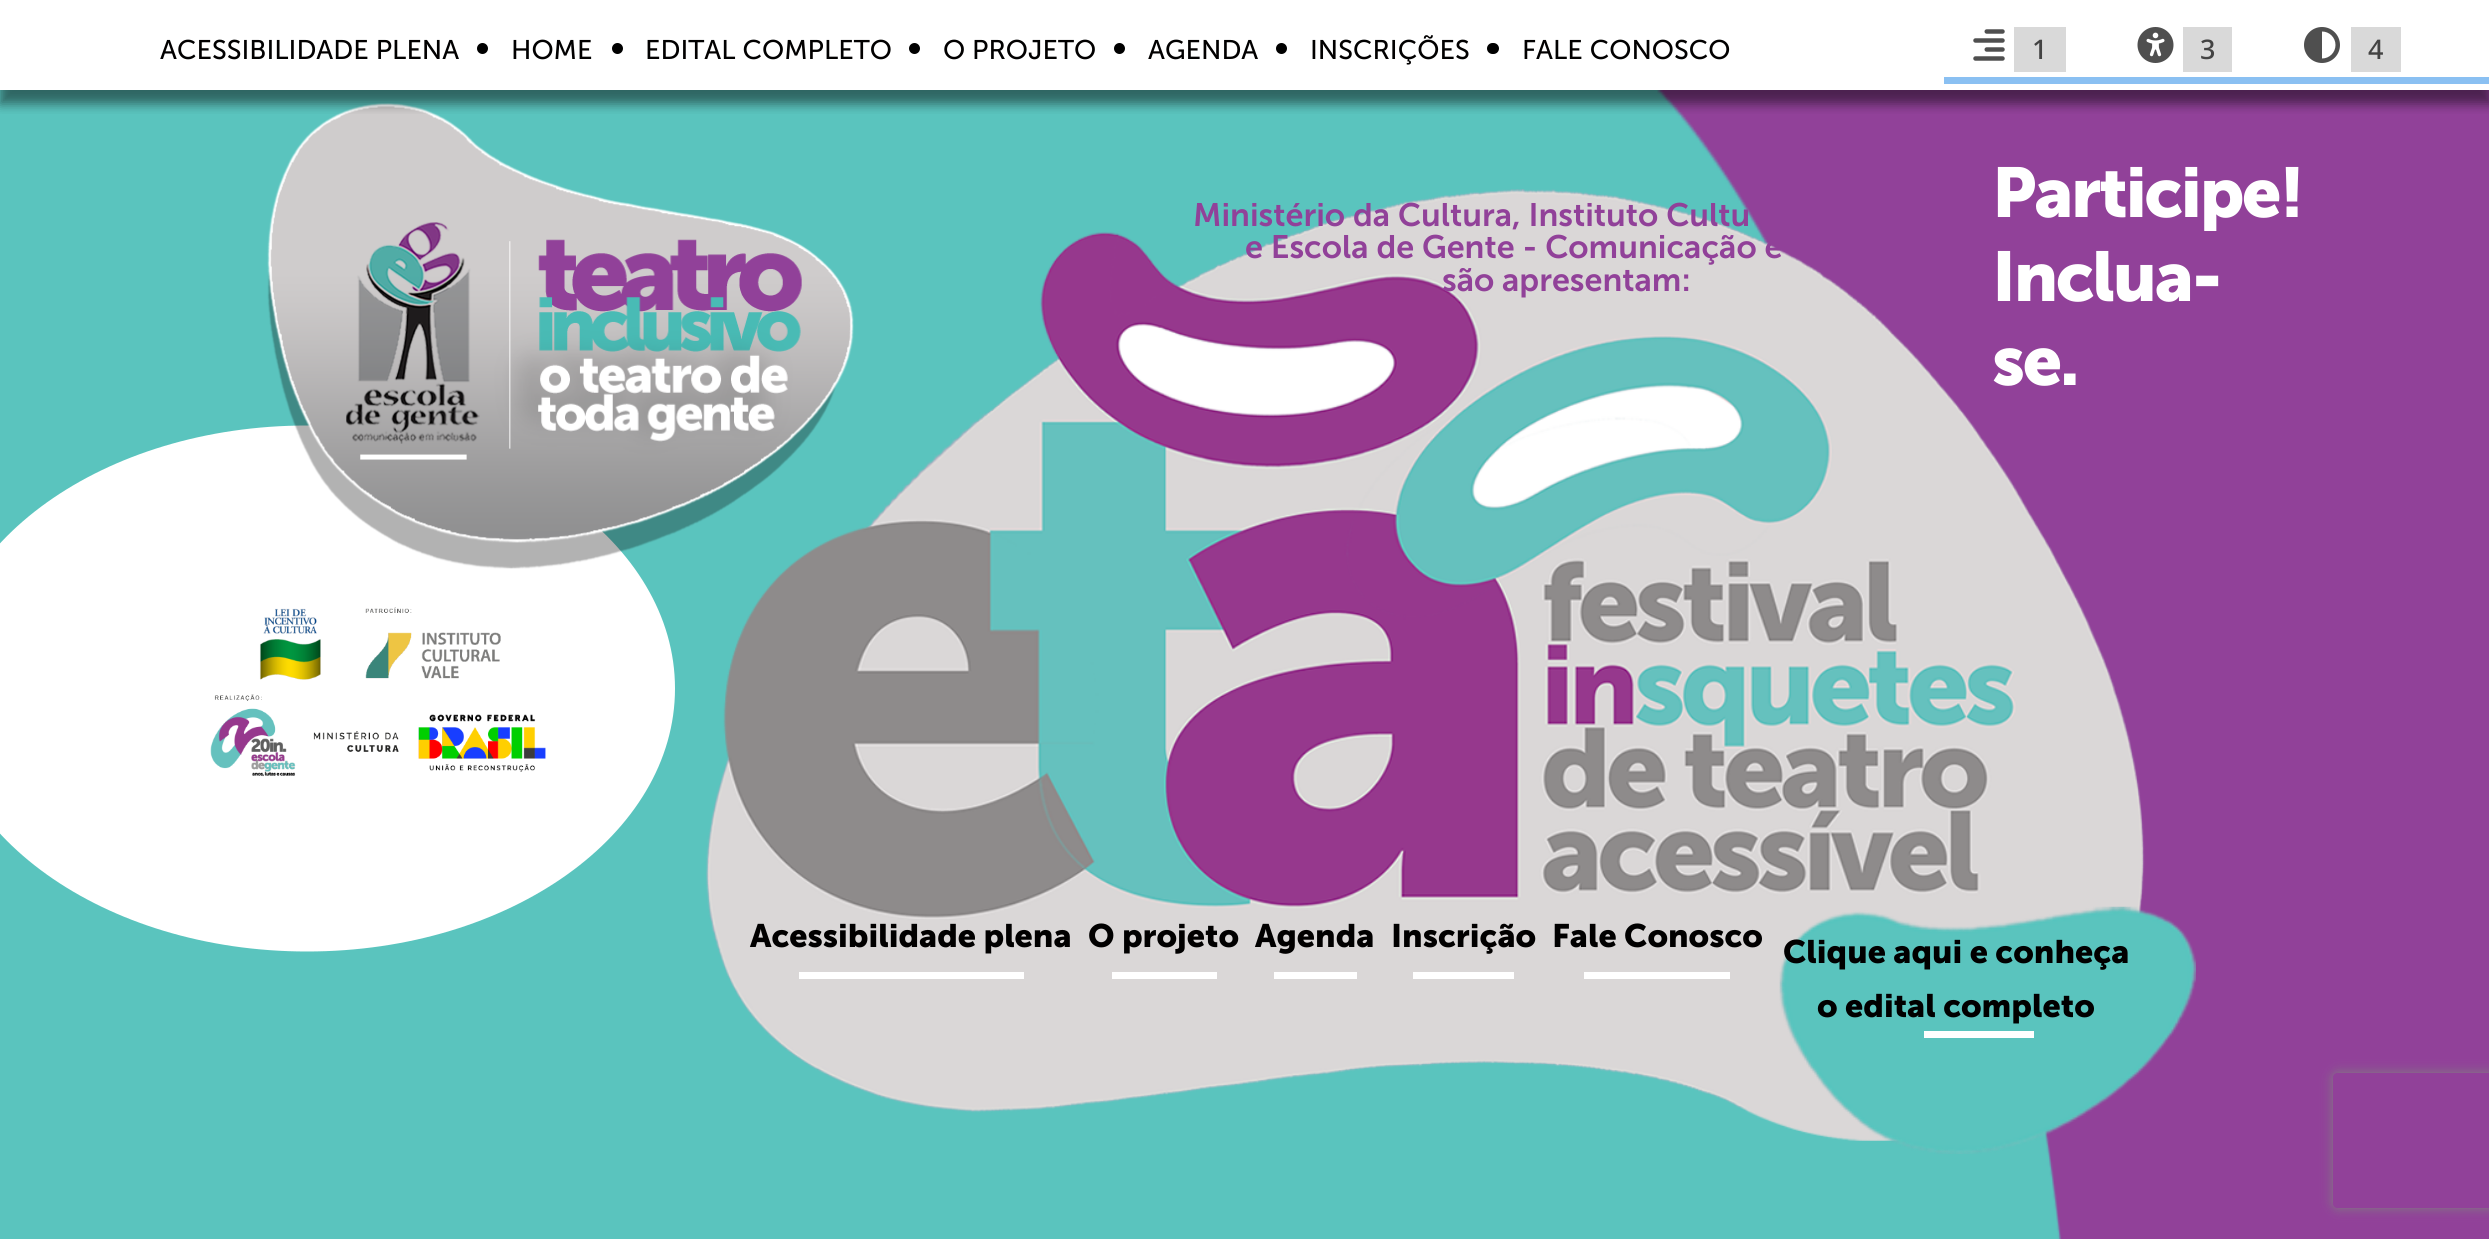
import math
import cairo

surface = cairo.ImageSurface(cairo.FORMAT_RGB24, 2489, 1239)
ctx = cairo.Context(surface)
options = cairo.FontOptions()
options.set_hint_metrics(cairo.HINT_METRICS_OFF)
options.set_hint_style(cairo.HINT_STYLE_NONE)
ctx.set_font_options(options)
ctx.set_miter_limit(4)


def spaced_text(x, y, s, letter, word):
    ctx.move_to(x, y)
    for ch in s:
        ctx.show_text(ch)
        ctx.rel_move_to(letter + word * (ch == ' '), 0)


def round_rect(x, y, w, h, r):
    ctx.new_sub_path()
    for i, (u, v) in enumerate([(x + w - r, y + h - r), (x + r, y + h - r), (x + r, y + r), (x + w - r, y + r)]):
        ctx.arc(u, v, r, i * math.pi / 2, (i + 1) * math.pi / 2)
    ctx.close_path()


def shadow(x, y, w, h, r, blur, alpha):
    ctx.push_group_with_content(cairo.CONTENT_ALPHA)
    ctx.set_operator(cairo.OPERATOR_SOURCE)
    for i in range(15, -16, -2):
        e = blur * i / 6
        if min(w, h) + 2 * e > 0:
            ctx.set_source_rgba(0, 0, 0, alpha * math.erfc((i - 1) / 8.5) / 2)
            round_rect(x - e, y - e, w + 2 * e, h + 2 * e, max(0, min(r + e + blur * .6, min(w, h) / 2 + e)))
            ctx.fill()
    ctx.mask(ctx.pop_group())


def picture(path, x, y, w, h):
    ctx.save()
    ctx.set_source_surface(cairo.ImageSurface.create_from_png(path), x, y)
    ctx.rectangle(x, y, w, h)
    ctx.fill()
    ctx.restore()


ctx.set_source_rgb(1, 1, 1)
ctx.paint()
picture("img4.png", 0, 90, 2489, 1149)
ctx.set_source_rgb(1, 1, 1)
ctx.new_path()
ctx.move_to(307, 425.5)
ctx.curve_to(510, 425.5, 675, 543, 675, 688.5)
ctx.curve_to(675, 834, 510, 951.5, 307, 951.5)
ctx.curve_to(104, 951.5, -61, 834, -61, 688.5)
ctx.curve_to(-61, 543, 104, 425.5, 307, 425.5)
ctx.close_path()
ctx.fill()
picture("img5.png", 267, 103, 587, 466)
ctx.save()
ctx.rectangle(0, 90, 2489, 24)
ctx.clip()
ctx.set_source_rgb(0, 0, 0)
shadow(0, 14, 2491, 90, 0, 5.5, 0.48)
ctx.restore()
ctx.select_font_face("Museo Sans")
ctx.set_font_size(27)
ctx.set_source_rgb(0.004, 0, 0)
ctx.move_to(160, 59)
ctx.show_text("ACESSIBILIDADE PLENA")
ctx.set_source_rgb(0, 0, 0)
ctx.new_path()
ctx.arc(482.5, 48.5, 5.5, 0, 2 * math.pi)
ctx.fill()
ctx.set_source_rgb(0.004, 0, 0)
ctx.move_to(511, 59)
ctx.show_text("HOME")
ctx.set_source_rgb(0, 0, 0)
ctx.new_path()
ctx.arc(617.5, 48.5, 5.5, 0, 2 * math.pi)
ctx.fill()
ctx.set_source_rgb(0.004, 0, 0)
ctx.move_to(645, 59)
ctx.show_text("EDITAL COMPLETO")
ctx.set_source_rgb(0, 0, 0)
ctx.new_path()
ctx.arc(914.5, 48.5, 5.5, 0, 2 * math.pi)
ctx.fill()
ctx.set_source_rgb(0.004, 0, 0)
ctx.move_to(943, 59)
ctx.show_text("O PROJETO")
ctx.set_source_rgb(0, 0, 0)
ctx.new_path()
ctx.arc(1119.5, 48.5, 5.5, 0, 2 * math.pi)
ctx.fill()
ctx.set_source_rgb(0.004, 0, 0)
ctx.move_to(1148, 59)
ctx.show_text("AGENDA")
ctx.set_source_rgb(0, 0, 0)
ctx.new_path()
ctx.arc(1281.5, 48.5, 5.5, 0, 2 * math.pi)
ctx.fill()
ctx.set_source_rgb(0.004, 0, 0)
ctx.move_to(1310, 59)
ctx.show_text("INSCRIÇÕES")
ctx.set_source_rgb(0, 0, 0)
round_rect(1487, 43, 12, 11, 5.5)
ctx.fill()
ctx.set_source_rgb(0.004, 0, 0)
ctx.move_to(1522, 59)
ctx.show_text("FALE CONOSCO")
picture("img1.png", 1973, 29, 32, 32)
ctx.set_source_rgb(0.851, 0.851, 0.851)
ctx.rectangle(2014, 27, 52, 45)
ctx.fill()
ctx.select_font_face("Noto Sans Medium")
ctx.set_source_rgb(0.263, 0.263, 0.263)
ctx.move_to(2032, 59)
ctx.show_text("1")
picture("img2.png", 2137, 27, 37, 36)
ctx.set_source_rgb(0.851, 0.851, 0.851)
ctx.rectangle(2183, 27, 49, 45)
ctx.fill()
ctx.set_source_rgb(0.263, 0.263, 0.263)
ctx.move_to(2200, 59)
ctx.show_text("3")
picture("img3.png", 2304, 27, 36, 36)
ctx.set_source_rgb(0.851, 0.851, 0.851)
ctx.rectangle(2351, 27, 50, 45)
ctx.fill()
ctx.set_source_rgb(0.263, 0.263, 0.263)
ctx.move_to(2368, 59)
ctx.show_text("4")
ctx.set_source_rgb(0.541, 0.753, 0.949)
ctx.rectangle(1944, 77, 545, 7)
ctx.fill()
picture("img6.png", 210, 607, 336, 170)
ctx.select_font_face("Museo Sans", cairo.FONT_SLANT_NORMAL, cairo.FONT_WEIGHT_BOLD)
ctx.set_font_size(70)
ctx.set_source_rgb(1, 1, 1)
spaced_text(1992, 217, "Participe!", -2.25, 0)
spaced_text(1992, 301, "Inclua-", -2.25, 0)
spaced_text(1992, 385, "se.", -2.25, 0)
picture("img7.png", 706, 189, 1439, 952)
ctx.select_font_face("Museo Sans SemiBold")
ctx.set_font_size(32.4)
ctx.set_source_rgb(0.569, 0.255, 0.6)
ctx.move_to(1193, 226)
ctx.show_text("Ministério da Cultura, Instituto Cultu")
ctx.move_to(1245, 258)
ctx.show_text("e Escola de Gente - Comunicação e")
ctx.move_to(1442, 291)
ctx.show_text("são apresentam:")
ctx.select_font_face("Museo Sans", cairo.FONT_SLANT_NORMAL, cairo.FONT_WEIGHT_BOLD)
ctx.set_source_rgb(0.004, 0, 0)
ctx.move_to(750, 947)
ctx.show_text("Acessibilidade plena")
ctx.set_source_rgb(1, 1, 1)
ctx.rectangle(799, 972, 225, 7)
ctx.fill()
ctx.set_source_rgb(0.004, 0, 0)
ctx.move_to(1088, 947)
ctx.show_text("O projeto")
ctx.set_source_rgb(1, 1, 1)
ctx.rectangle(1112, 972, 105, 7)
ctx.fill()
ctx.set_source_rgb(0.004, 0, 0)
ctx.move_to(1255, 947)
ctx.show_text("Agenda")
ctx.set_source_rgb(1, 1, 1)
ctx.rectangle(1274, 972, 83, 7)
ctx.fill()
ctx.set_source_rgb(0.004, 0, 0)
ctx.move_to(1391, 947)
ctx.show_text("Inscrição")
ctx.set_source_rgb(1, 1, 1)
ctx.rectangle(1413, 972, 101, 7)
ctx.fill()
ctx.set_source_rgb(0.004, 0, 0)
ctx.move_to(1552, 947)
ctx.show_text("Fale Conosco")
ctx.set_source_rgb(1, 1, 1)
ctx.rectangle(1584, 972, 146, 7)
ctx.fill()
picture("img8.png", 1779, 906, 417, 248)
ctx.set_source_rgb(0.004, 0, 0)
ctx.move_to(1783, 963)
ctx.show_text("Clique aqui e conheça")
ctx.move_to(1817, 1017)
ctx.show_text("o edital completo")
ctx.set_source_rgb(1, 1, 1)
ctx.rectangle(1924, 1031, 110, 7)
ctx.fill()
ctx.save()
ctx.set_fill_rule(cairo.FILL_RULE_EVEN_ODD)
ctx.new_path()
ctx.move_to(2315, 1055)
ctx.line_to(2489, 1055)
ctx.line_to(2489, 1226)
ctx.line_to(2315, 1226)
ctx.close_path()
ctx.move_to(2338, 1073)
ctx.line_to(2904, 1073)
ctx.curve_to(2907, 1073, 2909, 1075, 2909, 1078)
ctx.line_to(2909, 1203)
ctx.curve_to(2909, 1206, 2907, 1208, 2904, 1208)
ctx.line_to(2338, 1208)
ctx.curve_to(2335, 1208, 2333, 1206, 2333, 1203)
ctx.line_to(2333, 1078)
ctx.curve_to(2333, 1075, 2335, 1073, 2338, 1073)
ctx.close_path()
ctx.clip()
ctx.set_source_rgb(0.502, 0.502, 0.502)
shadow(2333, 1073, 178, 135, 5, 5.5, 1)
ctx.restore()
surface.write_to_png("page.png")
